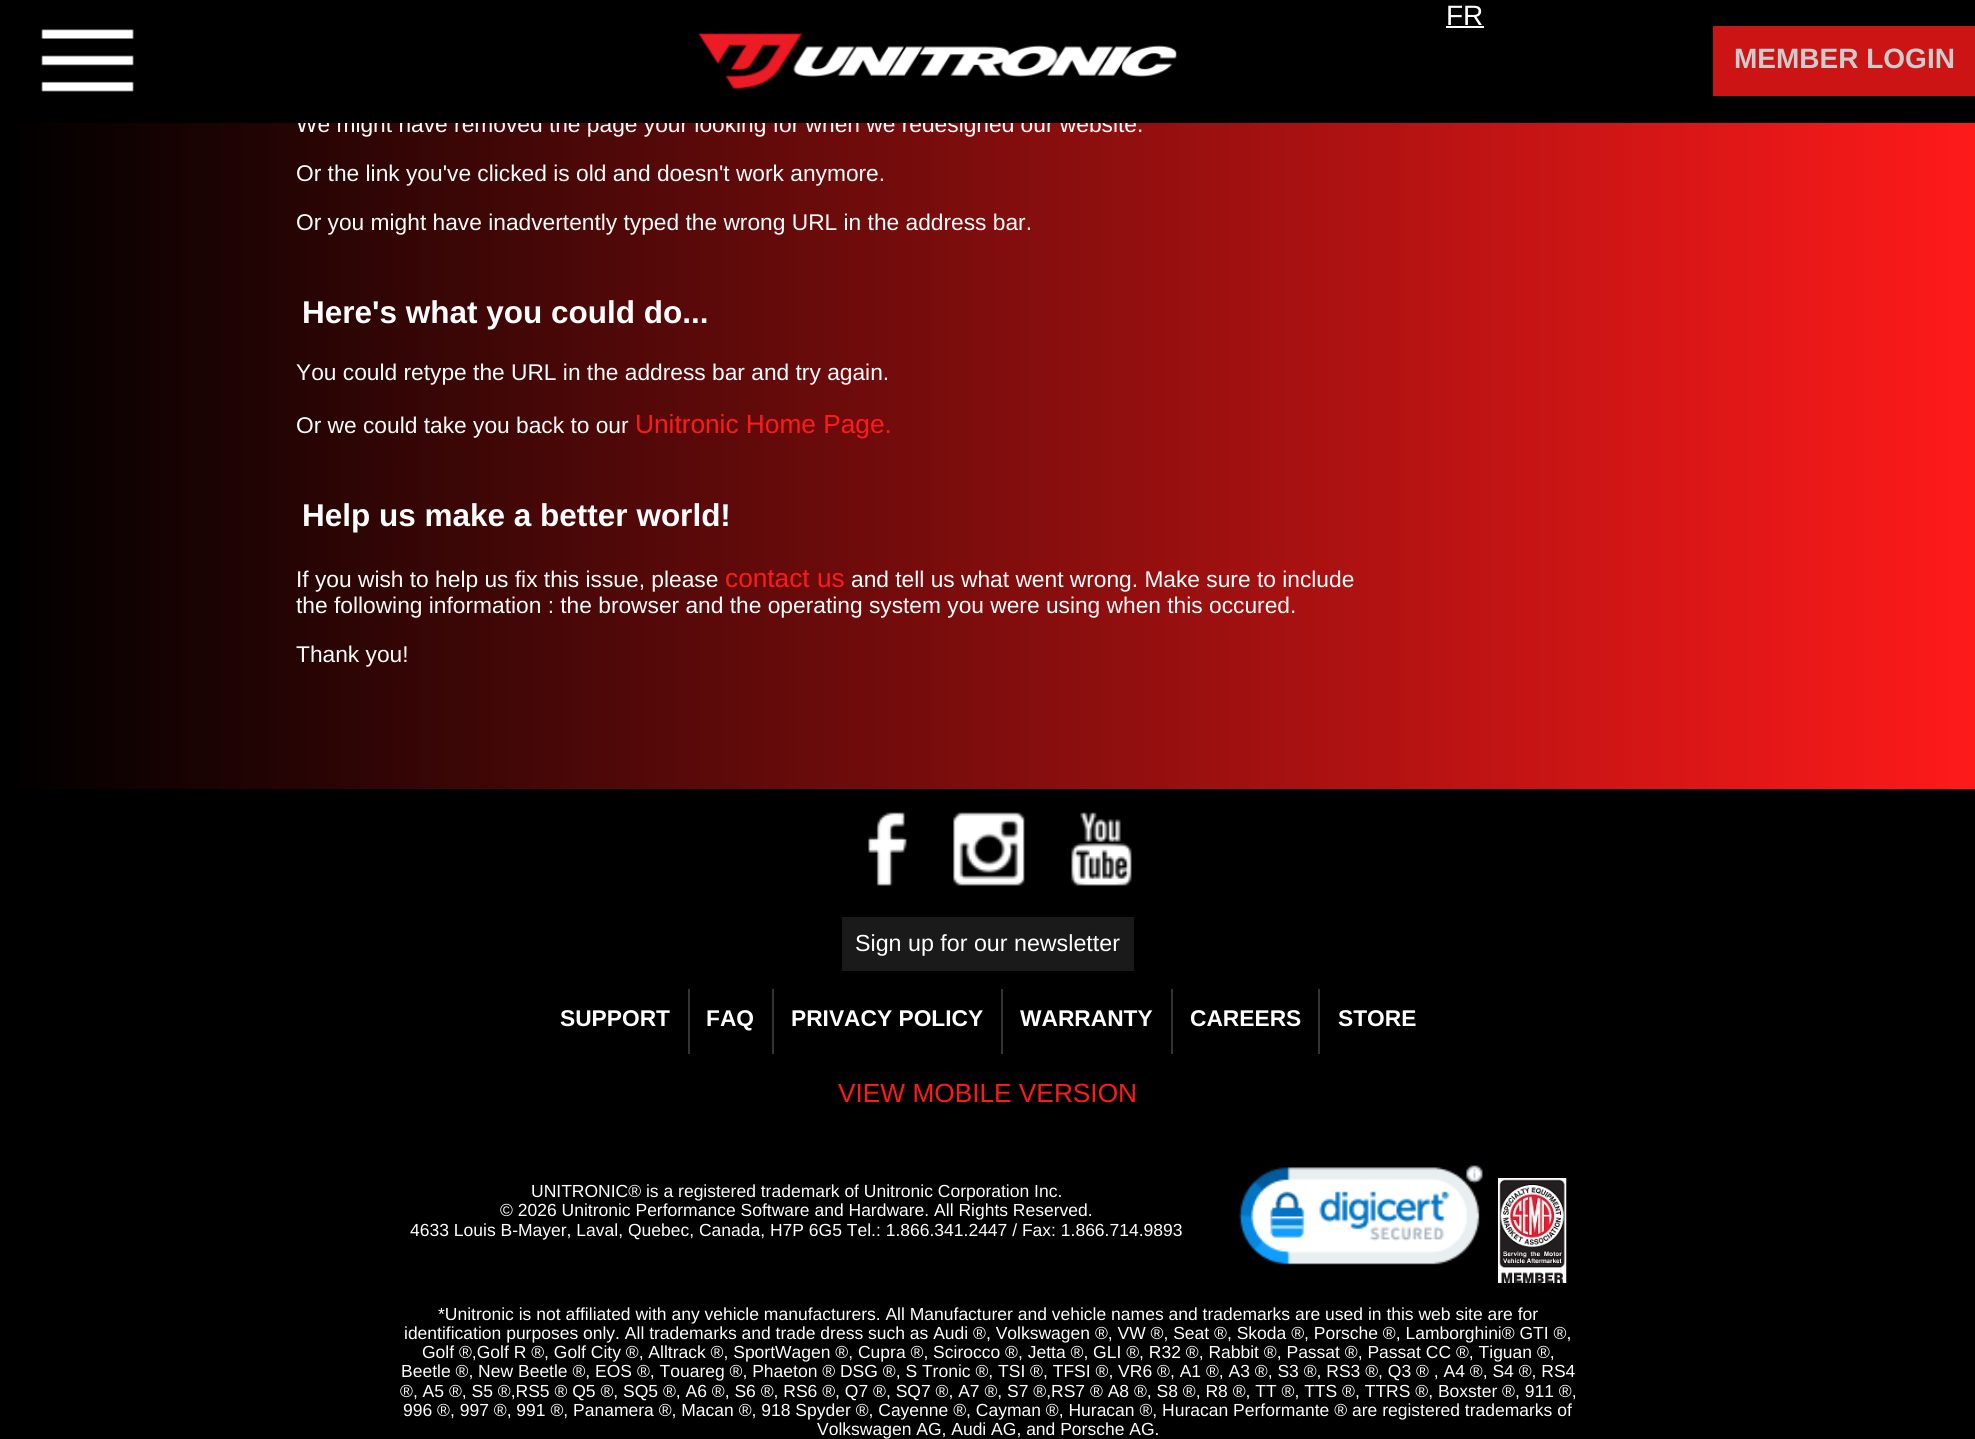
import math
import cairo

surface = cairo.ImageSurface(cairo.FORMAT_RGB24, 1975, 1439)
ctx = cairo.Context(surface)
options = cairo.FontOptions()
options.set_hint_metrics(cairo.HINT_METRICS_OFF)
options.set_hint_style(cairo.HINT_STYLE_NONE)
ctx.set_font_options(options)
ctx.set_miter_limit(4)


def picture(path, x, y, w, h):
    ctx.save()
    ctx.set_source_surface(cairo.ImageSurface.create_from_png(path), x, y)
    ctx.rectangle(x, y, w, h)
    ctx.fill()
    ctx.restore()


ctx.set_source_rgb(0, 0, 0)
ctx.paint()
gradient = cairo.LinearGradient(0, 271, 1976, 271)
gradient.add_color_stop_rgba(0, 0, 0, 0, 1)
gradient.add_color_stop_rgba(1, 1, 0.102, 0.102, 1)
ctx.set_source(gradient)
ctx.rectangle(19, 123, 1956, 666)
ctx.fill()
ctx.select_font_face("Liberation Sans")
ctx.set_font_size(22.75)
ctx.set_source_rgb(1, 1, 1)
ctx.move_to(296, 132)
ctx.show_text("We might have removed the page your looking for when we redesigned our website.")
ctx.set_source_rgb(0, 0, 0)
ctx.rectangle(296, 115, 840, 8)
ctx.fill()
picture("img1.png", 41, 29, 93, 63)
picture("img2.png", 698, 33, 479, 56)
ctx.set_font_size(28)
ctx.set_source_rgb(1, 1, 1)
ctx.move_to(1446, 25)
ctx.show_text("FR")
ctx.rectangle(1446, 26, 38, 2)
ctx.fill()
ctx.set_source_rgb(0.8, 0.082, 0.082)
ctx.rectangle(1713, 26, 262, 70)
ctx.fill()
ctx.select_font_face("Liberation Sans", cairo.FONT_SLANT_NORMAL, cairo.FONT_WEIGHT_BOLD)
ctx.set_source_rgb(0.8, 0.8, 0.8)
ctx.move_to(1734, 68)
ctx.show_text("MEMBER LOGIN")
ctx.select_font_face("Liberation Sans")
ctx.set_font_size(22.75)
ctx.set_source_rgb(1, 1, 1)
ctx.move_to(296, 181)
ctx.show_text("Or the link you've clicked is old and doesn't work anymore.")
ctx.move_to(296, 230)
ctx.show_text("Or you might have inadvertently typed the wrong URL in the address bar.")
ctx.select_font_face("Liberation Sans", cairo.FONT_SLANT_NORMAL, cairo.FONT_WEIGHT_BOLD)
ctx.set_font_size(31.5)
ctx.move_to(302, 323)
ctx.show_text("Here's what you could do...")
ctx.select_font_face("Liberation Sans")
ctx.set_font_size(22.75)
ctx.move_to(296, 380)
ctx.show_text("You could retype the URL in the address bar and try again.")
ctx.move_to(296, 433)
ctx.show_text("Or we could take you back to our")
ctx.set_font_size(26.25)
ctx.set_source_rgb(1, 0.102, 0.102)
ctx.move_to(635, 433)
ctx.show_text("Unitronic Home Page.")
ctx.select_font_face("Liberation Sans", cairo.FONT_SLANT_NORMAL, cairo.FONT_WEIGHT_BOLD)
ctx.set_font_size(31.5)
ctx.set_source_rgb(1, 1, 1)
ctx.move_to(302, 526)
ctx.show_text("Help us make a better world!")
ctx.select_font_face("Liberation Sans")
ctx.set_font_size(22.75)
ctx.move_to(296, 587)
ctx.show_text("If you wish to help us fix this issue, please")
ctx.set_font_size(26.25)
ctx.set_source_rgb(1, 0.102, 0.102)
ctx.move_to(725, 587)
ctx.show_text("contact us")
ctx.set_font_size(22.75)
ctx.set_source_rgb(1, 1, 1)
ctx.move_to(851, 587)
ctx.show_text("and tell us what went wrong. Make sure to include")
ctx.move_to(296, 613)
ctx.show_text("the following information : the browser and the operating system you were using when this occured.")
ctx.move_to(296, 662)
ctx.show_text("Thank you!")
picture("img3.png", 868, 812, 39, 74)
picture("img4.png", 953, 812, 72, 74)
picture("img5.png", 1071, 812, 61, 74)
ctx.set_source_rgb(0.102, 0.102, 0.102)
ctx.rectangle(842, 917, 292, 54)
ctx.fill()
ctx.set_font_size(23.25)
ctx.set_source_rgb(1, 1, 1)
ctx.move_to(855, 951)
ctx.show_text("Sign up for our newsletter")
ctx.select_font_face("Liberation Sans", cairo.FONT_SLANT_NORMAL, cairo.FONT_WEIGHT_BOLD)
ctx.set_font_size(22.75)
ctx.move_to(560, 1026)
ctx.show_text("SUPPORT")
ctx.set_source_rgb(0.2, 0.2, 0.2)
ctx.rectangle(688, 989, 2, 65)
ctx.fill()
ctx.set_source_rgb(1, 1, 1)
ctx.move_to(706, 1026)
ctx.show_text("FAQ")
ctx.set_source_rgb(0.2, 0.2, 0.2)
ctx.rectangle(772, 989, 2, 65)
ctx.fill()
ctx.set_source_rgb(1, 1, 1)
ctx.move_to(791, 1026)
ctx.show_text("PRIVACY POLICY")
ctx.set_source_rgb(0.2, 0.2, 0.2)
ctx.rectangle(1001, 989, 2, 65)
ctx.fill()
ctx.set_source_rgb(1, 1, 1)
ctx.move_to(1020, 1026)
ctx.show_text("WARRANTY")
ctx.set_source_rgb(0.2, 0.2, 0.2)
ctx.rectangle(1171, 989, 2, 65)
ctx.fill()
ctx.set_source_rgb(1, 1, 1)
ctx.move_to(1190, 1026)
ctx.show_text("CAREERS")
ctx.set_source_rgb(0.2, 0.2, 0.2)
ctx.rectangle(1318, 989, 2, 65)
ctx.fill()
ctx.set_source_rgb(1, 1, 1)
ctx.move_to(1338, 1026)
ctx.show_text("STORE")
ctx.select_font_face("Liberation Sans")
ctx.set_font_size(26.25)
ctx.set_source_rgb(1, 0.102, 0.102)
ctx.move_to(838, 1102)
ctx.show_text("VIEW MOBILE VERSION")
ctx.set_font_size(17.5)
ctx.set_source_rgb(1, 1, 1)
ctx.move_to(531, 1197)
ctx.show_text("UNITRONIC® is a registered trademark of Unitronic Corporation Inc.")
ctx.move_to(500, 1216)
ctx.show_text("© 2026 Unitronic Performance Software and Hardware. All Rights Reserved.")
ctx.move_to(410, 1236)
ctx.show_text("4633 Louis B-Mayer, Laval, Quebec, Canada, H7P 6G5 Tel.: 1.866.341.2447 / Fax: 1.866.714.9893")
picture("img6.png", 1239, 1165, 244, 100)
picture("img7.png", 1498, 1178, 69, 105)
ctx.move_to(438, 1320)
ctx.show_text("*Unitronic is not affiliated with any vehicle manufacturers. All Manufacturer and vehicle names and trademarks are used in this web site are for")
ctx.move_to(404, 1339)
ctx.show_text("identification purposes only. All trademarks and trade dress such as Audi ®, Volkswagen ®, VW ®, Seat ®, Skoda ®, Porsche ®, Lamborghini® GTI ®,")
ctx.move_to(422, 1358)
ctx.show_text("Golf ®,Golf R ®, Golf City ®, Alltrack ®, SportWagen ®, Cupra ®, Scirocco ®, Jetta ®, GLI ®, R32 ®, Rabbit ®, Passat ®, Passat CC ®, Tiguan ®,")
ctx.move_to(401, 1377)
ctx.show_text("Beetle ®, New Beetle ®, EOS ®, Touareg ®, Phaeton ® DSG ®, S Tronic ®, TSI ®, TFSI ®, VR6 ®, A1 ®, A3 ®, S3 ®, RS3 ®, Q3 ® , A4 ®, S4 ®, RS4")
ctx.move_to(400, 1397)
ctx.show_text("®, A5 ®, S5 ®,RS5 ® Q5 ®, SQ5 ®, A6 ®, S6 ®, RS6 ®, Q7 ®, SQ7 ®, A7 ®, S7 ®,RS7 ® A8 ®, S8 ®, R8 ®, TT ®, TTS ®, TTRS ®, Boxster ®, 911 ®,")
ctx.move_to(403, 1416)
ctx.show_text("996 ®, 997 ®, 991 ®, Panamera ®, Macan ®, 918 Spyder ®, Cayenne ®, Cayman ®, Huracan ®, Huracan Performante ® are registered trademarks of")
ctx.move_to(817, 1435)
ctx.show_text("Volkswagen AG, Audi AG, and Porsche AG.")
surface.write_to_png("page.png")
